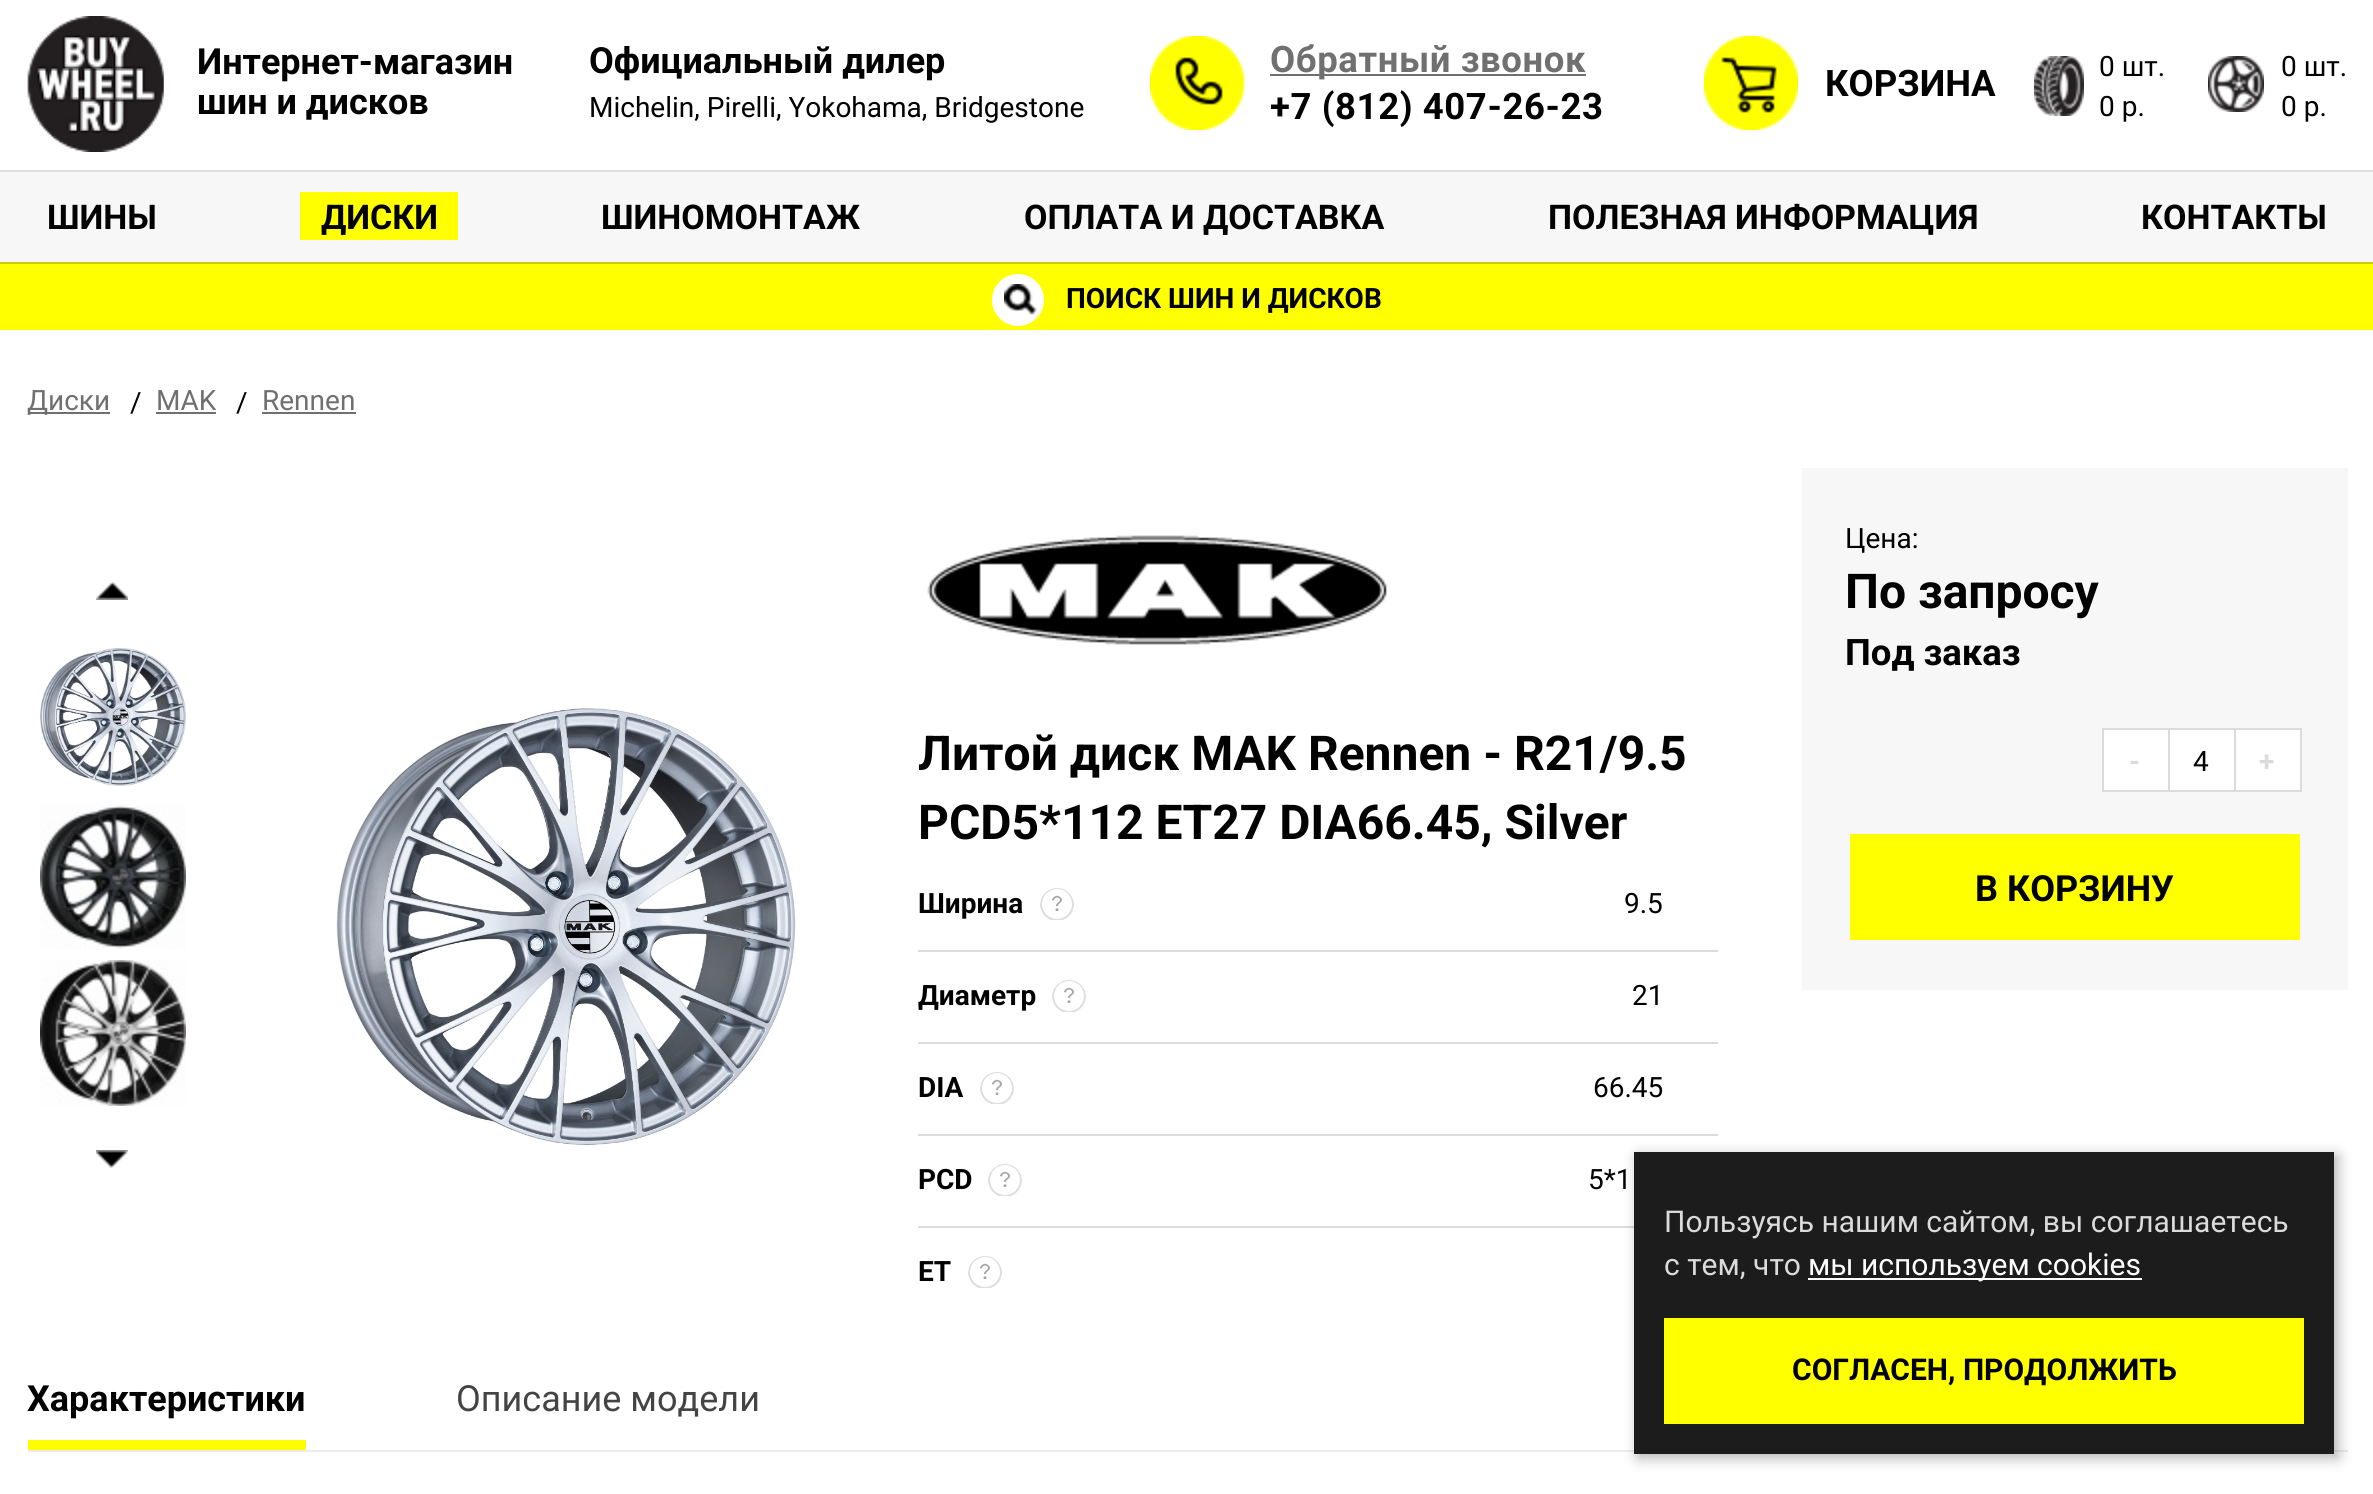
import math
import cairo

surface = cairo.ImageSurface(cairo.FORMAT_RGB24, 2373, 1494)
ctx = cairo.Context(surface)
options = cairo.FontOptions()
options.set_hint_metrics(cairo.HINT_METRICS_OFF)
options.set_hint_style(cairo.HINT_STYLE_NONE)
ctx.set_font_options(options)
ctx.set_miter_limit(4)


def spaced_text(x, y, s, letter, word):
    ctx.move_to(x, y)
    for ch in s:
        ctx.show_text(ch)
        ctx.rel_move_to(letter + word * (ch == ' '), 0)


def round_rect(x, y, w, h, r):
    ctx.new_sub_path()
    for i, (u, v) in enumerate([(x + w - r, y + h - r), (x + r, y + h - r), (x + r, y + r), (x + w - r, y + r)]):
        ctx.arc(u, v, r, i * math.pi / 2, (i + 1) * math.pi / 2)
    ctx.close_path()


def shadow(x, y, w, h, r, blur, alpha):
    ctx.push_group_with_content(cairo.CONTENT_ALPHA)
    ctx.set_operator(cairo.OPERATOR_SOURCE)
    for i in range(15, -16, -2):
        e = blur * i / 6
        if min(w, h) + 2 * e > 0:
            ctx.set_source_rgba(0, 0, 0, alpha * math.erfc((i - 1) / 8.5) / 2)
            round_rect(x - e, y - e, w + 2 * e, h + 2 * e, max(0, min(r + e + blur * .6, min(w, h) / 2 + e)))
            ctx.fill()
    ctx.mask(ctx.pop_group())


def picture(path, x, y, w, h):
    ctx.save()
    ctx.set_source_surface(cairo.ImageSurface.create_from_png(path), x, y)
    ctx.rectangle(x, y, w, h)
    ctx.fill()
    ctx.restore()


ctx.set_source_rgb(1, 1, 1)
ctx.paint()
picture("img1.png", 27, 16, 137, 136)
ctx.select_font_face("Roboto", cairo.FONT_SLANT_NORMAL, cairo.FONT_WEIGHT_BOLD)
ctx.set_font_size(36)
ctx.set_source_rgb(0.004, 0.004, 0.004)
ctx.move_to(197, 74)
ctx.show_text("Интернет-магазин")
ctx.move_to(197, 114)
ctx.show_text("шин и дисков")
ctx.move_to(589, 73)
ctx.show_text("Официальный дилер")
ctx.select_font_face("Roboto")
ctx.set_font_size(28)
ctx.move_to(589, 117)
ctx.show_text("Michelin, Pirelli, Yokohama, Bridgestone")
picture("img2.png", 1150, 36, 95, 94)
ctx.set_source_rgb(0.439, 0.439, 0.439)
ctx.rectangle(1270, 74, 316, 2)
ctx.fill()
ctx.select_font_face("Roboto", cairo.FONT_SLANT_NORMAL, cairo.FONT_WEIGHT_BOLD)
ctx.set_font_size(36.5)
spaced_text(1270, 72, "Обратный звонок", 0.6, 0)
ctx.set_source_rgb(0.004, 0.004, 0.004)
spaced_text(1270, 119, "+7 (812) 407-26-23", 0.6, 0)
picture("img3.png", 1704, 36, 94, 94)
ctx.move_to(1825, 96)
ctx.show_text("КОРЗИНА")
picture("img4.png", 2034, 56, 50, 60)
ctx.select_font_face("Roboto")
ctx.set_font_size(28)
ctx.move_to(2099, 76)
ctx.show_text("0 шт.")
ctx.move_to(2099, 116)
ctx.show_text("0 р.")
picture("img5.png", 2208, 56, 56, 56)
ctx.move_to(2281, 76)
ctx.show_text("0 шт.")
ctx.move_to(2281, 116)
ctx.show_text("0 р.")
ctx.set_source_rgb(0.965, 0.965, 0.965)
ctx.rectangle(0, 172, 2373, 90)
ctx.fill()
ctx.set_source_rgb(0.871, 0.871, 0.871)
ctx.rectangle(0, 170, 2373, 2)
ctx.fill()
ctx.select_font_face("Roboto", cairo.FONT_SLANT_NORMAL, cairo.FONT_WEIGHT_BOLD)
ctx.set_font_size(34)
ctx.set_source_rgb(0.004, 0.004, 0.004)
ctx.move_to(47, 229)
ctx.show_text("ШИНЫ")
ctx.set_source_rgb(1, 1, 0)
ctx.rectangle(300, 192, 158, 48)
ctx.fill()
ctx.set_source_rgb(0.004, 0.004, 0.004)
ctx.move_to(321, 229)
ctx.show_text("ДИСКИ")
ctx.move_to(601, 229)
ctx.show_text("ШИНОМОНТАЖ")
ctx.move_to(1024, 229)
ctx.show_text("ОПЛАТА И ДОСТАВКА")
ctx.move_to(1548, 229)
ctx.show_text("ПОЛЕЗНАЯ ИНФОРМАЦИЯ")
ctx.move_to(2141, 229)
ctx.show_text("КОНТАКТЫ")
ctx.set_source_rgb(1, 1, 0)
ctx.rectangle(0, 264, 2373, 66)
ctx.fill()
ctx.set_source_rgb(0.8, 0.8, 0)
ctx.rectangle(0, 262, 2373, 2)
ctx.fill()
ctx.set_source_rgb(1, 1, 1)
ctx.arc(1018, 300, 25, 0, 2 * math.pi)
ctx.fill_preserve()
ctx.stroke()
picture("img6.png", 1004, 284, 33, 31)
ctx.set_font_size(28)
ctx.set_source_rgb(0.004, 0.004, 0.004)
ctx.move_to(1066, 308)
ctx.show_text("ПОИСК ШИН И ДИСКОВ")
ctx.set_source_rgb(0.439, 0.439, 0.439)
ctx.rectangle(28, 412, 82, 2)
ctx.fill()
ctx.select_font_face("Roboto")
ctx.move_to(27, 410)
ctx.show_text("Диски")
ctx.set_source_rgb(0.004, 0.004, 0.004)
ctx.move_to(130, 412)
ctx.show_text("/")
ctx.set_source_rgb(0.439, 0.439, 0.439)
ctx.move_to(156, 410)
ctx.show_text("MAK")
ctx.rectangle(156, 412, 60, 2)
ctx.fill()
ctx.set_source_rgb(0.004, 0.004, 0.004)
ctx.move_to(236, 412)
ctx.show_text("/")
ctx.set_source_rgb(0.439, 0.439, 0.439)
ctx.move_to(262, 410)
ctx.show_text("Rennen")
ctx.rectangle(262, 412, 94, 2)
ctx.fill()
picture("img7.png", 96, 582, 32, 18)
picture("img8.png", 96, 1150, 32, 18)
picture("img9.png", 40, 648, 146, 138)
picture("img10.png", 40, 804, 146, 145)
picture("img11.png", 40, 960, 146, 146)
picture("img12.png", 336, 708, 460, 437)
picture("img13.png", 927, 535, 460, 110)
ctx.select_font_face("Roboto", cairo.FONT_SLANT_NORMAL, cairo.FONT_WEIGHT_BOLD)
ctx.set_font_size(48)
ctx.set_source_rgb(0.004, 0.004, 0.004)
ctx.move_to(918, 770)
ctx.show_text("Литой диск MAK Rennen - R21/9.5")
ctx.move_to(918, 839)
ctx.show_text("PCD5*112 ET27 DIA66.45, Silver")
ctx.set_font_size(28)
ctx.move_to(918, 913)
ctx.show_text("Ширина")
picture("img14.png", 1040, 888, 34, 32)
ctx.select_font_face("Roboto")
ctx.move_to(1624, 913)
ctx.show_text("9.5")
ctx.set_source_rgb(0.859, 0.859, 0.859)
ctx.rectangle(918, 950, 800, 2)
ctx.fill()
ctx.select_font_face("Roboto", cairo.FONT_SLANT_NORMAL, cairo.FONT_WEIGHT_BOLD)
ctx.set_source_rgb(0.004, 0.004, 0.004)
ctx.move_to(918, 1005)
ctx.show_text("Диаметр")
picture("img14.png", 1052, 980, 34, 32)
ctx.select_font_face("Roboto")
ctx.move_to(1632, 1005)
ctx.show_text("21")
ctx.set_source_rgb(0.859, 0.859, 0.859)
ctx.rectangle(918, 1042, 800, 2)
ctx.fill()
ctx.select_font_face("Roboto", cairo.FONT_SLANT_NORMAL, cairo.FONT_WEIGHT_BOLD)
ctx.set_source_rgb(0.004, 0.004, 0.004)
ctx.move_to(918, 1097)
ctx.show_text("DIA")
picture("img14.png", 980, 1072, 34, 32)
ctx.select_font_face("Roboto")
ctx.move_to(1593, 1097)
ctx.show_text("66.45")
ctx.set_source_rgb(0.859, 0.859, 0.859)
ctx.rectangle(918, 1134, 800, 2)
ctx.fill()
ctx.select_font_face("Roboto", cairo.FONT_SLANT_NORMAL, cairo.FONT_WEIGHT_BOLD)
ctx.set_source_rgb(0.004, 0.004, 0.004)
ctx.move_to(918, 1189)
ctx.show_text("PCD")
picture("img14.png", 988, 1164, 34, 32)
ctx.select_font_face("Roboto")
ctx.move_to(1588, 1189)
ctx.show_text("5*1")
ctx.set_source_rgb(0.859, 0.859, 0.859)
ctx.rectangle(918, 1226, 716, 2)
ctx.fill()
ctx.select_font_face("Roboto", cairo.FONT_SLANT_NORMAL, cairo.FONT_WEIGHT_BOLD)
ctx.set_source_rgb(0.004, 0.004, 0.004)
ctx.move_to(918, 1281)
ctx.show_text("ET")
picture("img14.png", 968, 1256, 34, 32)
ctx.set_source_rgb(0.965, 0.965, 0.965)
ctx.rectangle(1802, 468, 546, 522)
ctx.fill()
ctx.select_font_face("Roboto")
ctx.set_source_rgb(0.004, 0.004, 0.004)
ctx.move_to(1845, 548)
ctx.show_text("Цена:")
ctx.select_font_face("Roboto", cairo.FONT_SLANT_NORMAL, cairo.FONT_WEIGHT_BOLD)
ctx.set_font_size(48)
ctx.move_to(1845, 608)
ctx.show_text("По запросу")
ctx.set_font_size(36.5)
ctx.move_to(1845, 665)
ctx.show_text("Под заказ")
ctx.rectangle(2103, 729, 198, 62)
ctx.set_source_rgb(0.859, 0.859, 0.859)
ctx.stroke()
ctx.set_source_rgb(1, 1, 1)
ctx.rectangle(2104, 730, 64, 60)
ctx.fill()
ctx.set_source_rgb(0.859, 0.859, 0.859)
ctx.rectangle(2168, 730, 2, 60)
ctx.fill()
ctx.set_font_size(28)
ctx.move_to(2129, 771)
ctx.show_text("-")
ctx.set_source_rgb(1, 1, 1)
ctx.rectangle(2170, 730, 64, 60)
ctx.fill()
ctx.select_font_face("Roboto")
ctx.set_source_rgb(0.004, 0.004, 0.004)
ctx.move_to(2193, 771)
ctx.show_text("4")
ctx.set_source_rgb(1, 1, 1)
ctx.rectangle(2236, 730, 64, 60)
ctx.fill()
ctx.set_source_rgb(0.859, 0.859, 0.859)
ctx.rectangle(2234, 730, 2, 60)
ctx.fill()
ctx.select_font_face("Roboto", cairo.FONT_SLANT_NORMAL, cairo.FONT_WEIGHT_BOLD)
ctx.move_to(2259, 771)
ctx.show_text("+")
ctx.set_source_rgb(1, 1, 0)
ctx.rectangle(1850, 834, 450, 106)
ctx.fill()
ctx.set_font_size(36)
ctx.set_source_rgb(0.004, 0.004, 0.004)
ctx.move_to(1975, 901)
ctx.show_text("В КОРЗИНУ")
ctx.set_source_rgb(0.925, 0.925, 0.925)
ctx.rectangle(28, 1450, 2320, 2)
ctx.fill()
ctx.set_source_rgb(0.004, 0.004, 0.004)
ctx.move_to(27, 1411)
ctx.show_text("Характеристики")
ctx.set_source_rgb(1, 1, 0)
ctx.rectangle(28, 1440, 278, 10)
ctx.fill()
ctx.select_font_face("Roboto")
ctx.set_source_rgb(0.267, 0.267, 0.267)
ctx.move_to(456, 1411)
ctx.show_text("Описание модели")
ctx.set_source_rgb(0, 0, 0)
shadow(1638, 1156, 700, 302, 0, 7, 0.3)
ctx.set_source_rgb(0.11, 0.11, 0.11)
ctx.rectangle(1634, 1152, 700, 302)
ctx.fill()
ctx.set_font_size(30)
ctx.set_source_rgb(0.859, 0.859, 0.859)
ctx.move_to(1664, 1232)
ctx.show_text("Пользуясь нашим сайтом, вы соглашаетесь")
ctx.move_to(1664, 1275)
ctx.show_text("с тем, что")
ctx.set_source_rgb(1, 1, 1)
ctx.rectangle(1808, 1278, 334, 2)
ctx.fill()
ctx.move_to(1808, 1275)
ctx.show_text("мы используем cookies")
ctx.set_source_rgb(1, 1, 0)
ctx.rectangle(1664, 1318, 640, 106)
ctx.fill()
ctx.select_font_face("Roboto", cairo.FONT_SLANT_NORMAL, cairo.FONT_WEIGHT_BOLD)
ctx.set_source_rgb(0.004, 0.004, 0.004)
ctx.move_to(1792, 1380)
ctx.show_text("СОГЛАСЕН, ПРОДОЛЖИТЬ")
surface.write_to_png("page.png")
